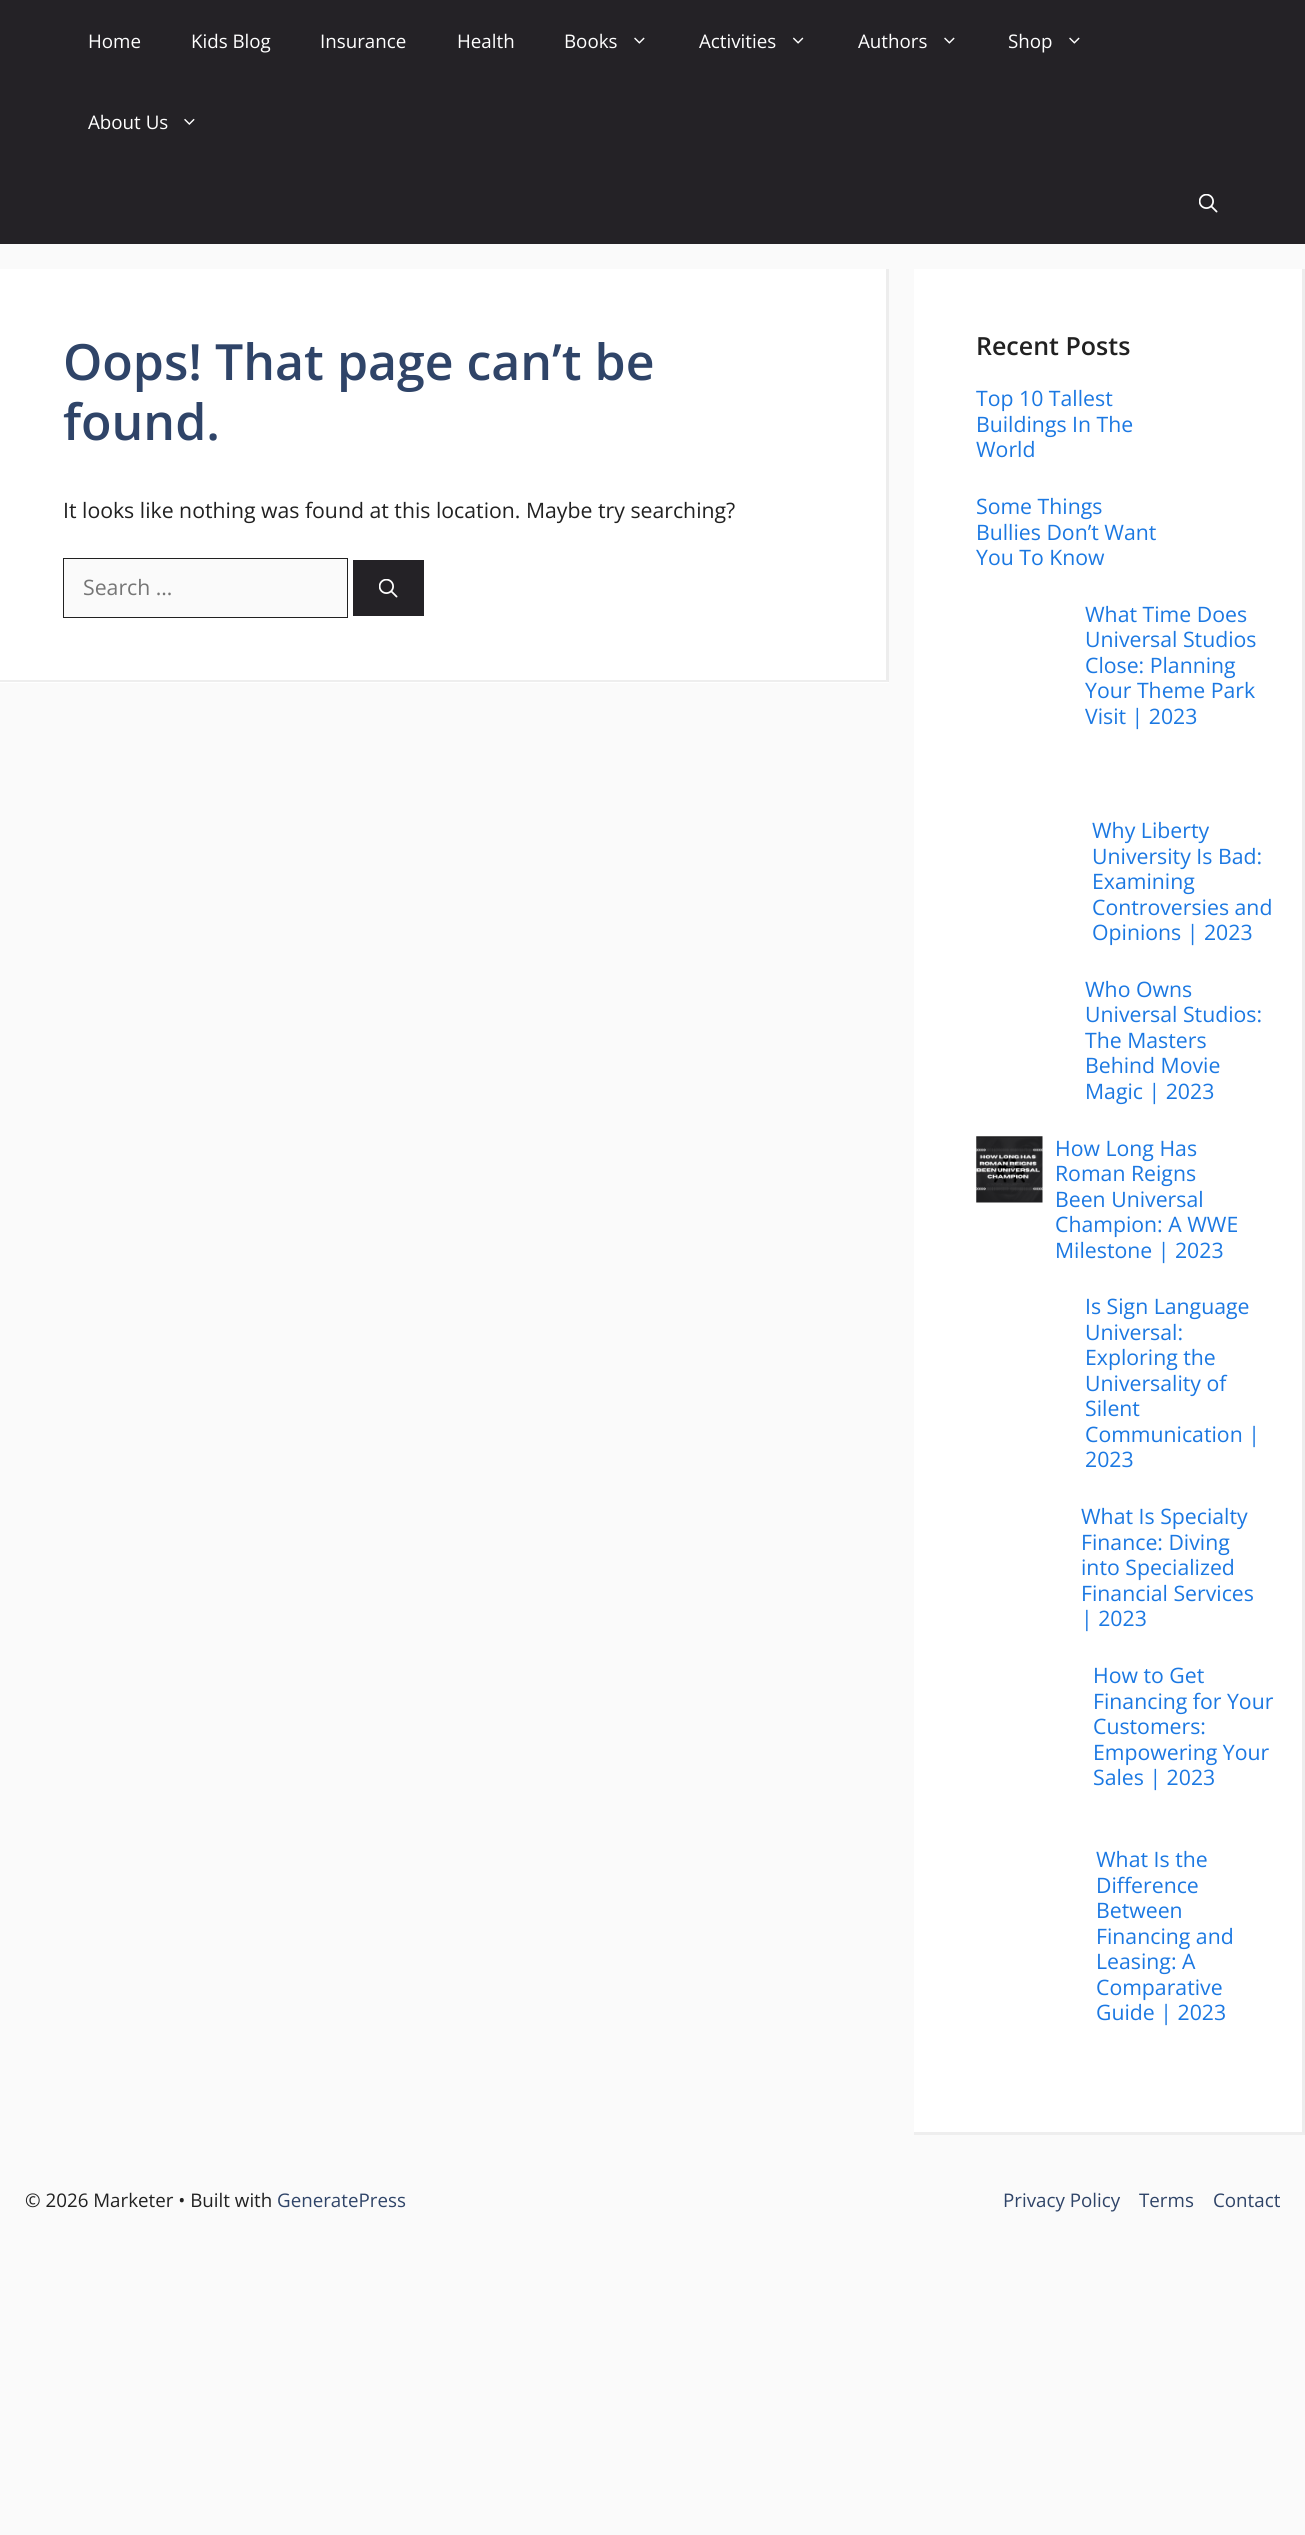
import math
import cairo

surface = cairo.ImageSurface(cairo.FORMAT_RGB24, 1305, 2535)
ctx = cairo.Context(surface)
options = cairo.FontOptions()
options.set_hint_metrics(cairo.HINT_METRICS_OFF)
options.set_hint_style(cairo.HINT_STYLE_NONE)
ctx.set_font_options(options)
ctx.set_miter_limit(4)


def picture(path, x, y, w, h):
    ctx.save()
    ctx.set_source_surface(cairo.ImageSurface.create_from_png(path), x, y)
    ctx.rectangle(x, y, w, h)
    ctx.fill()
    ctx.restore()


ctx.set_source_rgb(0.98, 0.98, 0.98)
ctx.paint()
ctx.set_source_rgb(0.141, 0.133, 0.149)
ctx.rectangle(0, 0, 1305, 244)
ctx.fill()
ctx.select_font_face("Open Sans")
ctx.set_font_size(18.75)
ctx.set_source_rgb(1, 1, 1)
ctx.move_to(88, 48)
ctx.show_text("Home")
ctx.move_to(191, 48)
ctx.show_text("Kids Blog")
ctx.move_to(320, 48)
ctx.show_text("Insurance")
ctx.move_to(457, 48)
ctx.show_text("Health")
ctx.move_to(564, 48)
ctx.show_text("Books")
picture("img1.png", 634, 37, 11, 7)
ctx.move_to(699, 48)
ctx.show_text("Activities")
picture("img2.png", 793, 37, 11, 7)
ctx.move_to(858, 48)
ctx.show_text("Authors")
picture("img1.png", 944, 37, 11, 7)
ctx.move_to(1008, 48)
ctx.show_text("Shop")
picture("img1.png", 1069, 37, 11, 7)
ctx.move_to(88, 129)
ctx.show_text("About Us")
picture("img3.png", 184, 118, 11, 7)
picture("img4.png", 1199, 194, 19, 19)
ctx.rectangle(0, 269, 889, 414)
ctx.fill()
ctx.set_source_rgb(0.929, 0.929, 0.929)
ctx.new_path()
ctx.move_to(889, 269)
ctx.line_to(889, 682)
ctx.line_to(886, 680)
ctx.line_to(886, 269)
ctx.close_path()
ctx.fill()
ctx.set_source_rgba(0, 0, 0, 0.07)
ctx.new_path()
ctx.move_to(889, 682)
ctx.line_to(0, 682)
ctx.line_to(0, 680)
ctx.line_to(886, 680)
ctx.close_path()
ctx.fill()
ctx.select_font_face("Open Sans SemiBold")
ctx.set_font_size(50)
ctx.set_source_rgb(0.184, 0.267, 0.408)
ctx.move_to(63, 380)
ctx.show_text("Oops! That page can’t be")
ctx.move_to(63, 440)
ctx.show_text("found.")
ctx.select_font_face("Open Sans")
ctx.set_font_size(21.25)
ctx.set_source_rgb(0.129, 0.129, 0.129)
ctx.move_to(63, 518)
ctx.show_text("It looks like nothing was found at this location. Maybe try searching?")
ctx.set_source_rgb(0.98, 0.98, 0.98)
ctx.rectangle(63.5, 558.5, 284, 59)
ctx.fill_preserve()
ctx.set_source_rgb(0.129, 0.129, 0.129)
ctx.set_line_width(1)
ctx.stroke()
ctx.set_source_rgb(0.459, 0.459, 0.459)
ctx.move_to(83, 595)
ctx.show_text("Search …")
ctx.set_source_rgb(0.141, 0.133, 0.149)
ctx.rectangle(353, 560, 71, 56)
ctx.fill()
picture("img4.png", 379, 579, 19, 19)
ctx.set_source_rgb(1, 1, 1)
ctx.rectangle(914, 269, 391, 1866)
ctx.fill()
ctx.set_source_rgb(0.929, 0.929, 0.929)
ctx.new_path()
ctx.move_to(1305, 269)
ctx.line_to(1305, 2135)
ctx.line_to(1302, 2132)
ctx.line_to(1302, 269)
ctx.close_path()
ctx.fill()
ctx.set_source_rgba(0, 0, 0, 0.07)
ctx.new_path()
ctx.move_to(1305, 2135)
ctx.line_to(914, 2135)
ctx.line_to(914, 2132)
ctx.line_to(1302, 2132)
ctx.close_path()
ctx.fill()
ctx.select_font_face("Open Sans SemiBold")
ctx.set_font_size(25)
ctx.set_source_rgb(0.129, 0.129, 0.129)
ctx.move_to(976, 355)
ctx.show_text("Recent Posts")
ctx.select_font_face("Open Sans")
ctx.set_font_size(21.25)
ctx.set_source_rgb(0.106, 0.471, 0.886)
ctx.move_to(976, 406)
ctx.show_text("Top 10 Tallest")
ctx.move_to(976, 432)
ctx.show_text("Buildings In The")
ctx.move_to(976, 457)
ctx.show_text("World")
ctx.move_to(976, 514)
ctx.show_text("Some Things")
ctx.move_to(976, 540)
ctx.show_text("Bullies Don’t Want")
ctx.move_to(976, 565)
ctx.show_text("You To Know")
ctx.move_to(1085, 622)
ctx.show_text("What Time Does")
ctx.move_to(1085, 647)
ctx.show_text("Universal Studios")
ctx.move_to(1085, 673)
ctx.show_text("Close: Planning")
ctx.move_to(1085, 698)
ctx.show_text("Your Theme Park")
ctx.move_to(1085, 724)
ctx.show_text("Visit | 2023")
ctx.move_to(1092, 838)
ctx.show_text("Why Liberty")
ctx.move_to(1092, 864)
ctx.show_text("University Is Bad:")
ctx.move_to(1092, 889)
ctx.show_text("Examining")
ctx.move_to(1092, 915)
ctx.show_text("Controversies and")
ctx.move_to(1092, 940)
ctx.show_text("Opinions | 2023")
ctx.move_to(1085, 997)
ctx.show_text("Who Owns")
ctx.move_to(1085, 1022)
ctx.show_text("Universal Studios:")
ctx.move_to(1085, 1048)
ctx.show_text("The Masters")
ctx.move_to(1085, 1073)
ctx.show_text("Behind Movie")
ctx.move_to(1085, 1099)
ctx.show_text("Magic | 2023")
picture("img5.png", 976, 1136, 67, 67)
ctx.move_to(1055, 1156)
ctx.show_text("How Long Has")
ctx.move_to(1055, 1181)
ctx.show_text("Roman Reigns")
ctx.move_to(1055, 1207)
ctx.show_text("Been Universal")
ctx.move_to(1055, 1232)
ctx.show_text("Champion: A WWE")
ctx.move_to(1055, 1258)
ctx.show_text("Milestone | 2023")
ctx.move_to(1085, 1314)
ctx.show_text("Is Sign Language")
ctx.move_to(1085, 1340)
ctx.show_text("Universal:")
ctx.move_to(1085, 1365)
ctx.show_text("Exploring the")
ctx.move_to(1085, 1391)
ctx.show_text("Universality of")
ctx.move_to(1085, 1416)
ctx.show_text("Silent")
ctx.move_to(1085, 1442)
ctx.show_text("Communication |")
ctx.move_to(1085, 1467)
ctx.show_text("2023")
ctx.move_to(1081, 1524)
ctx.show_text("What Is Specialty")
ctx.move_to(1081, 1550)
ctx.show_text("Finance: Diving")
ctx.move_to(1081, 1575)
ctx.show_text("into Specialized")
ctx.move_to(1081, 1601)
ctx.show_text("Financial Services")
ctx.move_to(1081, 1626)
ctx.show_text("| 2023")
ctx.move_to(1093, 1683)
ctx.show_text("How to Get")
ctx.move_to(1093, 1709)
ctx.show_text("Financing for Your")
ctx.move_to(1093, 1734)
ctx.show_text("Customers:")
ctx.move_to(1093, 1760)
ctx.show_text("Empowering Your")
ctx.move_to(1093, 1785)
ctx.show_text("Sales | 2023")
ctx.move_to(1096, 1867)
ctx.show_text("What Is the")
ctx.move_to(1096, 1893)
ctx.show_text("Difference")
ctx.move_to(1096, 1918)
ctx.show_text("Between")
ctx.move_to(1096, 1944)
ctx.show_text("Financing and")
ctx.move_to(1096, 1969)
ctx.show_text("Leasing: A")
ctx.move_to(1096, 1995)
ctx.show_text("Comparative")
ctx.move_to(1096, 2020)
ctx.show_text("Guide | 2023")
ctx.set_font_size(18.75)
ctx.set_source_rgb(0.129, 0.129, 0.129)
ctx.move_to(25, 2207)
ctx.show_text("© 2026 Marketer • Built with")
ctx.set_source_rgb(0.184, 0.267, 0.408)
ctx.move_to(277, 2207)
ctx.show_text("GeneratePress")
ctx.move_to(1003, 2207)
ctx.show_text("Privacy Policy")
ctx.move_to(1139, 2207)
ctx.show_text("Terms")
ctx.move_to(1213, 2207)
ctx.show_text("Contact")
surface.write_to_png("page.png")
